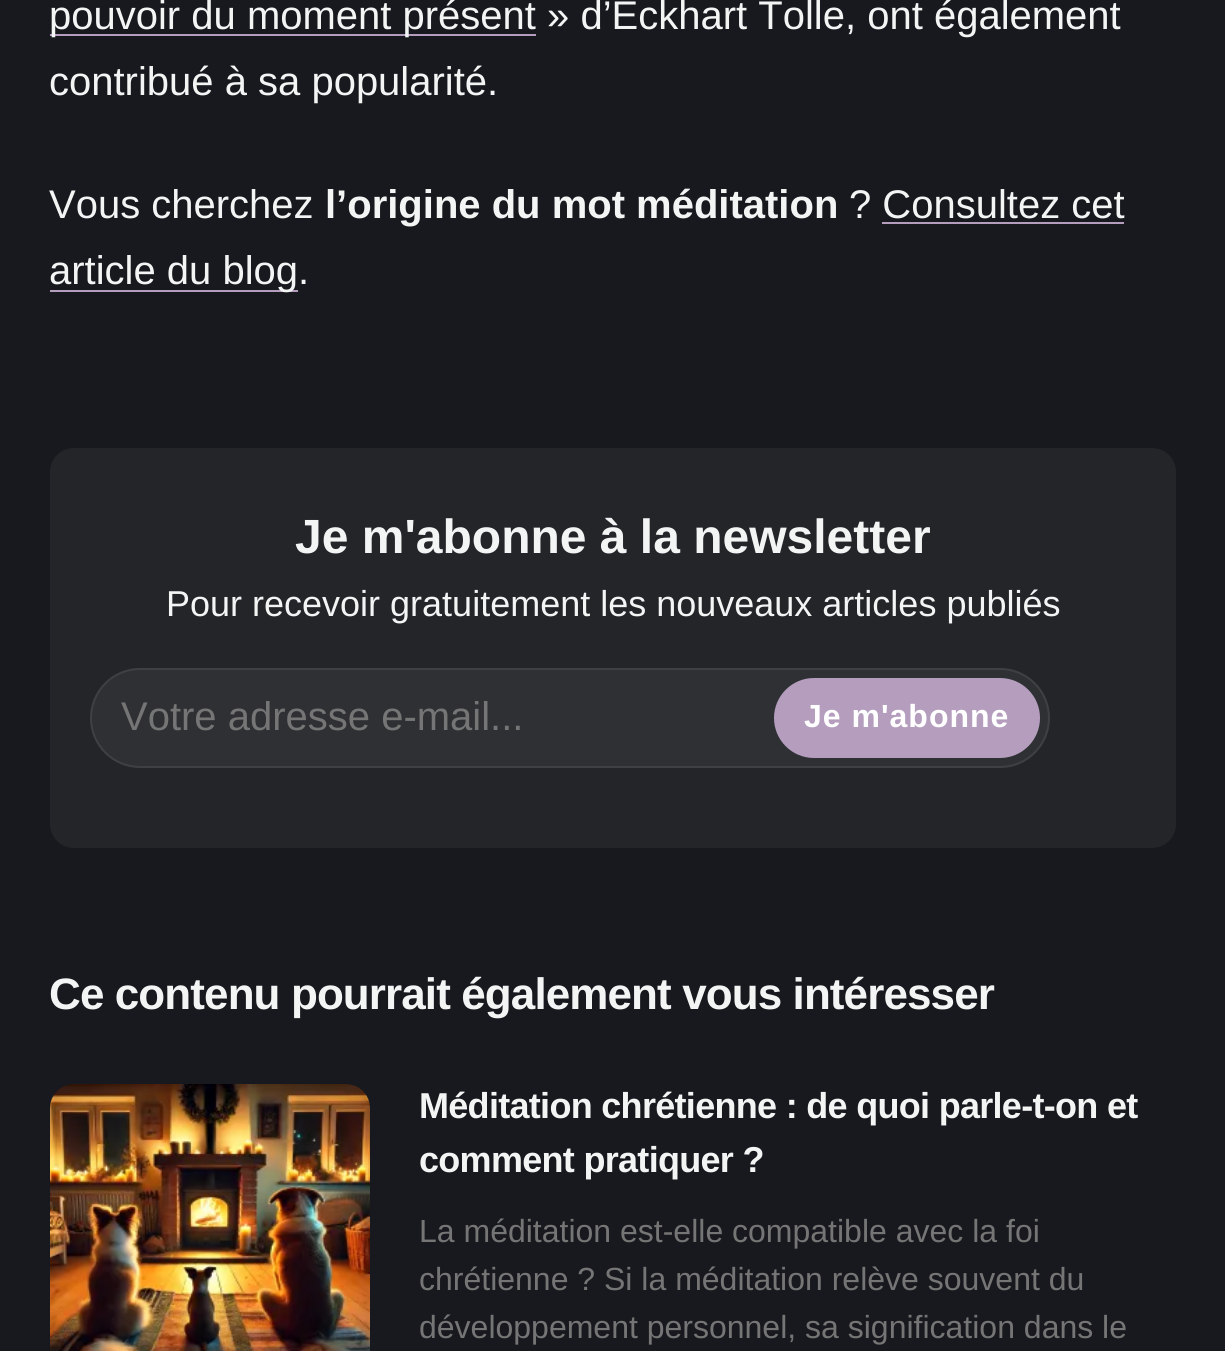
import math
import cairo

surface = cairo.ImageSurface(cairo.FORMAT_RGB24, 1225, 1351)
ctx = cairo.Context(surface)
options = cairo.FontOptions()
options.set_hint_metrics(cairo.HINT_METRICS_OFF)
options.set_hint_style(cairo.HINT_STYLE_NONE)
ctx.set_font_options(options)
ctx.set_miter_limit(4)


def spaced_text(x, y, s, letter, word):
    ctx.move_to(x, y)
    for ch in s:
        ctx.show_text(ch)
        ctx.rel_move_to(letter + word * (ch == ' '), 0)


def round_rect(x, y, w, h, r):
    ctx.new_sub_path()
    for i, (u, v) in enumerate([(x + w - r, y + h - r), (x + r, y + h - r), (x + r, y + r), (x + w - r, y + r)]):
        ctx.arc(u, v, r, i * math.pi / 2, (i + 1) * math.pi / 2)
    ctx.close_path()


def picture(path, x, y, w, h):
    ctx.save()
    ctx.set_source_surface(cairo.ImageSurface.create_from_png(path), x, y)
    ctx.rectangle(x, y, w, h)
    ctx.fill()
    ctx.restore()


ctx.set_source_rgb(0.09, 0.098, 0.118)
ctx.paint()
ctx.set_source_rgb(0.71, 0.616, 0.745)
ctx.rectangle(50, 34, 486, 2)
ctx.fill()
ctx.select_font_face("Liberation Sans")
ctx.set_font_size(40)
ctx.set_source_rgb(0.953, 0.957, 0.957)
ctx.move_to(49, 29)
ctx.show_text("pouvoir du moment présent » d’Eckhart Tolle, ont également")
ctx.move_to(49, 95)
ctx.show_text("contribué à sa popularité.")
ctx.move_to(49, 218)
ctx.show_text("Vous cherchez")
ctx.select_font_face("Liberation Sans", cairo.FONT_SLANT_NORMAL, cairo.FONT_WEIGHT_BOLD)
ctx.move_to(325, 218)
ctx.show_text("l’origine du mot méditation")
ctx.select_font_face("Liberation Sans")
ctx.move_to(849, 218)
ctx.show_text("? Consultez cet")
ctx.set_source_rgb(0.71, 0.616, 0.745)
ctx.rectangle(50, 290, 248, 2)
ctx.fill()
ctx.set_source_rgb(0.953, 0.957, 0.957)
ctx.move_to(49, 284)
ctx.show_text("article du blog.")
ctx.set_source_rgb(0.71, 0.616, 0.745)
ctx.rectangle(882, 222, 242, 2)
ctx.fill()
ctx.set_source_rgb(0.137, 0.145, 0.161)
round_rect(50, 448, 1126, 400, 24)
ctx.fill()
ctx.select_font_face("Liberation Sans", cairo.FONT_SLANT_NORMAL, cairo.FONT_WEIGHT_BOLD)
ctx.set_font_size(48)
ctx.set_source_rgb(0.953, 0.957, 0.957)
ctx.move_to(295, 553)
ctx.show_text("Je m'abonne à la newsletter")
ctx.select_font_face("Liberation Sans")
ctx.set_font_size(36)
ctx.move_to(166, 616)
ctx.show_text("Pour recevoir gratuitement les nouveaux articles publiés")
ctx.set_source_rgb(0.18, 0.188, 0.204)
round_rect(90, 668, 960, 100, 50)
ctx.fill()
round_rect(91, 669, 958, 98, 49)
ctx.set_source_rgba(1, 1, 1, 0.08)
ctx.stroke()
ctx.set_font_size(40)
ctx.set_source_rgb(0.459, 0.459, 0.459)
ctx.move_to(121, 730)
ctx.show_text("Votre adresse e-mail...")
ctx.set_source_rgb(0.71, 0.616, 0.745)
round_rect(774, 678, 266, 80, 40)
ctx.fill()
ctx.select_font_face("Liberation Sans", cairo.FONT_SLANT_NORMAL, cairo.FONT_WEIGHT_BOLD)
ctx.set_font_size(32)
ctx.set_source_rgb(1, 1, 1)
spaced_text(804, 727, "Je m'abonne", 1, 0)
ctx.set_font_size(44)
ctx.set_source_rgb(0.953, 0.957, 0.957)
spaced_text(49, 1009, "Ce contenu pourrait également vous intéresser", -0.9, 0)
picture("img1.png", 50, 1084, 320, 267)
ctx.set_font_size(36)
spaced_text(419, 1118, "Méditation chrétienne : de quoi parle-t-on et", -0.7, 0)
spaced_text(419, 1172, "comment pratiquer ?", -0.7, 0)
ctx.select_font_face("Liberation Sans")
ctx.set_font_size(32)
ctx.set_source_rgb(0.459, 0.459, 0.459)
ctx.move_to(419, 1242)
ctx.show_text("La méditation est-elle compatible avec la foi")
ctx.move_to(419, 1290)
ctx.show_text("chrétienne ? Si la méditation relève souvent du")
ctx.move_to(419, 1338)
ctx.show_text("développement personnel, sa signification dans le")
surface.write_to_png("page.png")
